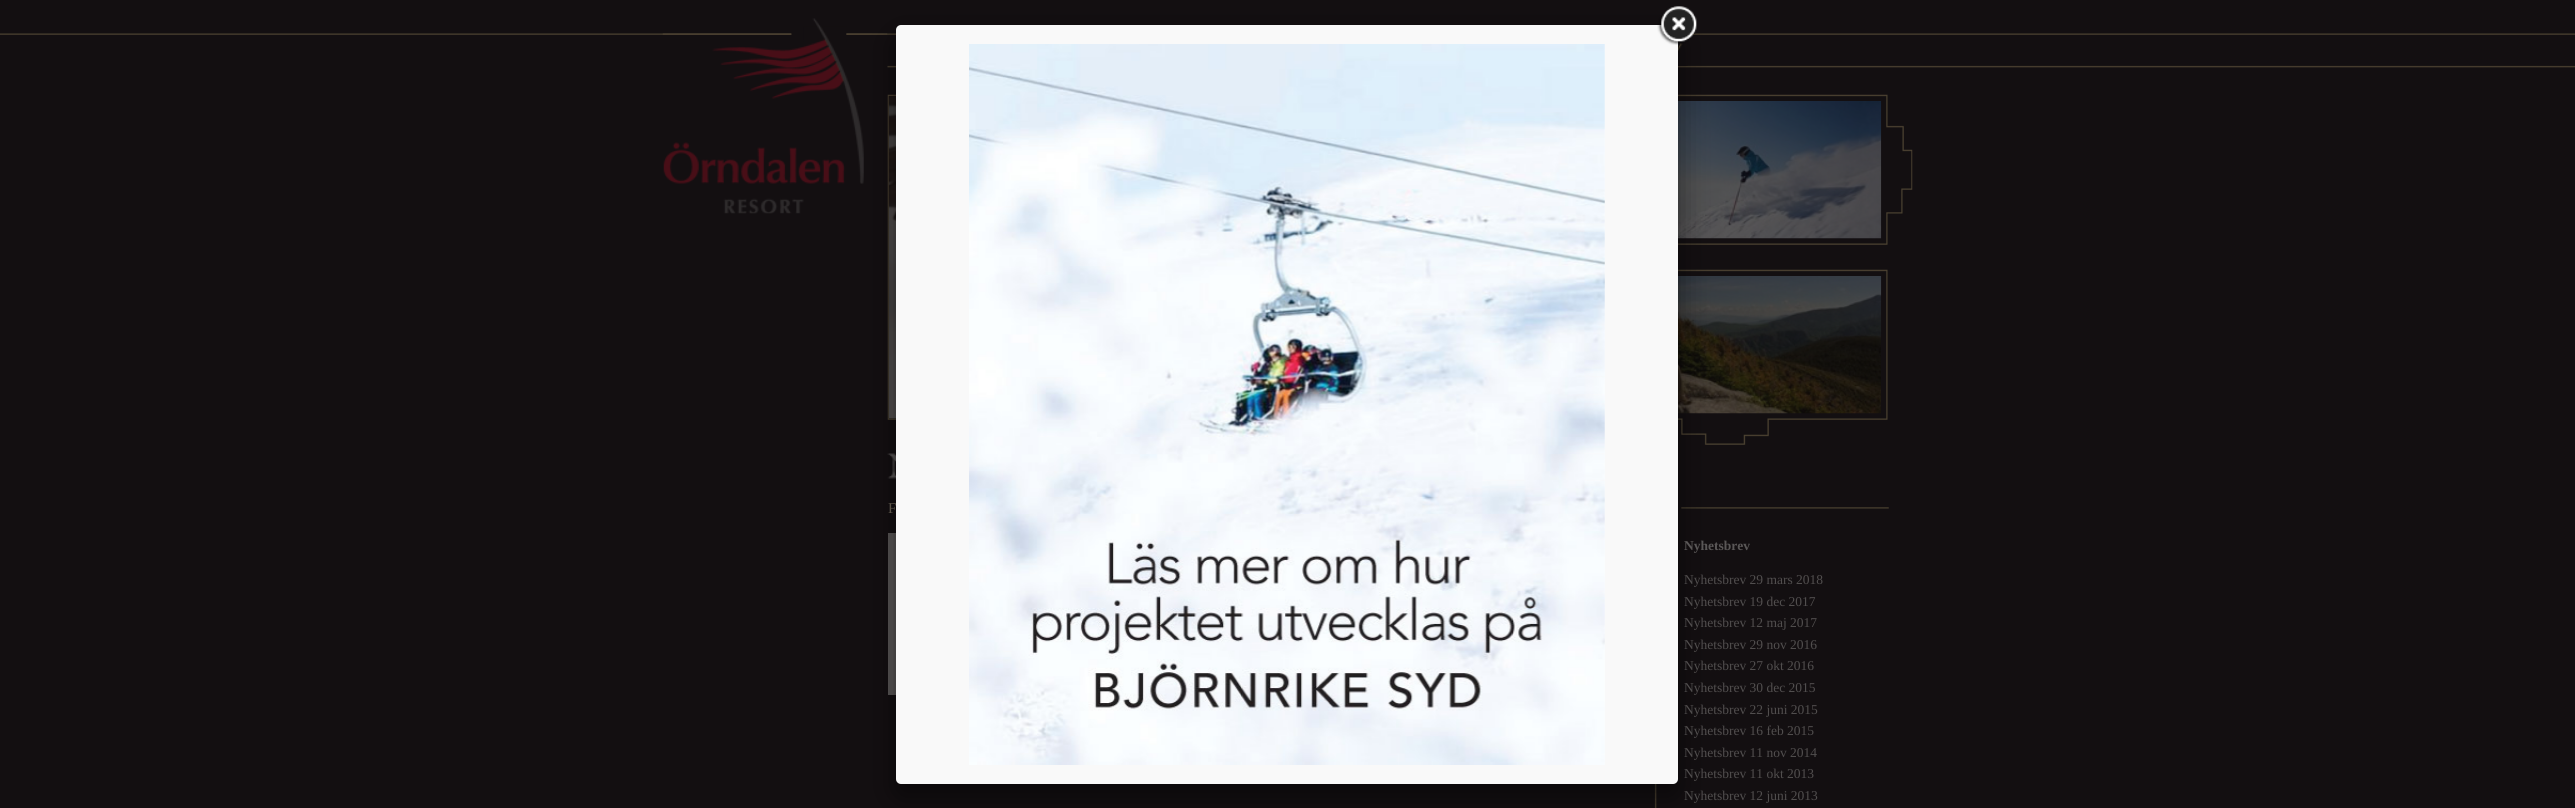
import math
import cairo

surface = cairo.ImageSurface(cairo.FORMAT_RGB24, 2575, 808)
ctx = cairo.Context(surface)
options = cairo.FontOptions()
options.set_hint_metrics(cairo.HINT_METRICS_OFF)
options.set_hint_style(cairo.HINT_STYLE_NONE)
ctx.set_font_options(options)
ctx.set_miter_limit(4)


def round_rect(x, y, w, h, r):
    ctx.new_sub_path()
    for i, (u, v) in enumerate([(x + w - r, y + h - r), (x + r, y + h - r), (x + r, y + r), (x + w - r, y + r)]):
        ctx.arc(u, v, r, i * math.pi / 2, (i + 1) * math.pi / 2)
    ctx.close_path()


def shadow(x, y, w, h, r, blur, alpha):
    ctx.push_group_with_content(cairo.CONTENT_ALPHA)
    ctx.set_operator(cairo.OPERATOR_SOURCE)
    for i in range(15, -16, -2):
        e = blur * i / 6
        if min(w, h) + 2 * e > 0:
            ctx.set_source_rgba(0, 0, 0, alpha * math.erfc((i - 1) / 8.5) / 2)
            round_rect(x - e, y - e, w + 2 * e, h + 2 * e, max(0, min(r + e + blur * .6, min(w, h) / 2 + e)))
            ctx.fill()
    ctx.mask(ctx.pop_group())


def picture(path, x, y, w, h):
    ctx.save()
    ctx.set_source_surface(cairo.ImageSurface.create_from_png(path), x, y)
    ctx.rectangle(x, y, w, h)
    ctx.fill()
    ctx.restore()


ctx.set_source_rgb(0.075, 0.059, 0.067)
ctx.paint()
picture("img1.png", 0, 33, 2575, 35)
picture("img4.png", 662, 18, 226, 196)
picture("img5.png", 1678, 37, 10, 29)
picture("img6.png", 887, 94, 1026, 351)
picture("img7.png", 888, 96, 8, 323)
picture("img8.png", 1678, 101, 204, 138)
picture("img9.png", 1678, 276, 204, 138)
picture("img10.png", 887, 453, 9, 26)
ctx.set_source_rgb(0.353, 0.341, 0.341)
ctx.rectangle(888, 533, 8, 162)
ctx.fill()
picture("img11.png", 1643, 501, 246, 307)
ctx.set_source_rgb(0, 0, 0)
shadow(896, 38, 782, 758, 5, 15.5, 0.5)
ctx.set_source_rgb(0.976, 0.976, 0.976)
round_rect(896, 25, 782, 759, 5)
ctx.fill()
picture("img2.png", 1657, 6, 40, 39)
picture("img3.png", 969, 44, 636, 721)
ctx.select_font_face("Liberation Serif")
ctx.set_font_size(15)
ctx.set_source_rgb(0.353, 0.325, 0.282)
ctx.move_to(888, 513)
ctx.show_text("F")
ctx.select_font_face("Liberation Serif", cairo.FONT_SLANT_NORMAL, cairo.FONT_WEIGHT_BOLD)
ctx.set_font_size(13.5)
ctx.set_source_rgb(0.353, 0.341, 0.341)
ctx.move_to(1684, 550)
ctx.show_text("Nyhetsbrev")
ctx.select_font_face("Liberation Serif")
ctx.set_source_rgb(0.318, 0.306, 0.306)
ctx.move_to(1684, 584)
ctx.show_text("Nyhetsbrev 29 mars 2018")
ctx.move_to(1684, 606)
ctx.show_text("Nyhetsbrev 19 dec 2017")
ctx.move_to(1684, 627)
ctx.show_text("Nyhetsbrev 12 maj 2017")
ctx.move_to(1684, 649)
ctx.show_text("Nyhetsbrev 29 nov 2016")
ctx.move_to(1684, 670)
ctx.show_text("Nyhetsbrev 27 okt 2016")
ctx.move_to(1684, 692)
ctx.show_text("Nyhetsbrev 30 dec 2015")
ctx.move_to(1684, 714)
ctx.show_text("Nyhetsbrev 22 juni 2015")
ctx.move_to(1684, 735)
ctx.show_text("Nyhetsbrev 16 feb 2015")
ctx.move_to(1684, 757)
ctx.show_text("Nyhetsbrev 11 nov 2014")
ctx.move_to(1684, 778)
ctx.show_text("Nyhetsbrev 11 okt 2013")
ctx.move_to(1684, 800)
ctx.show_text("Nyhetsbrev 12 juni 2013")
surface.write_to_png("page.png")
